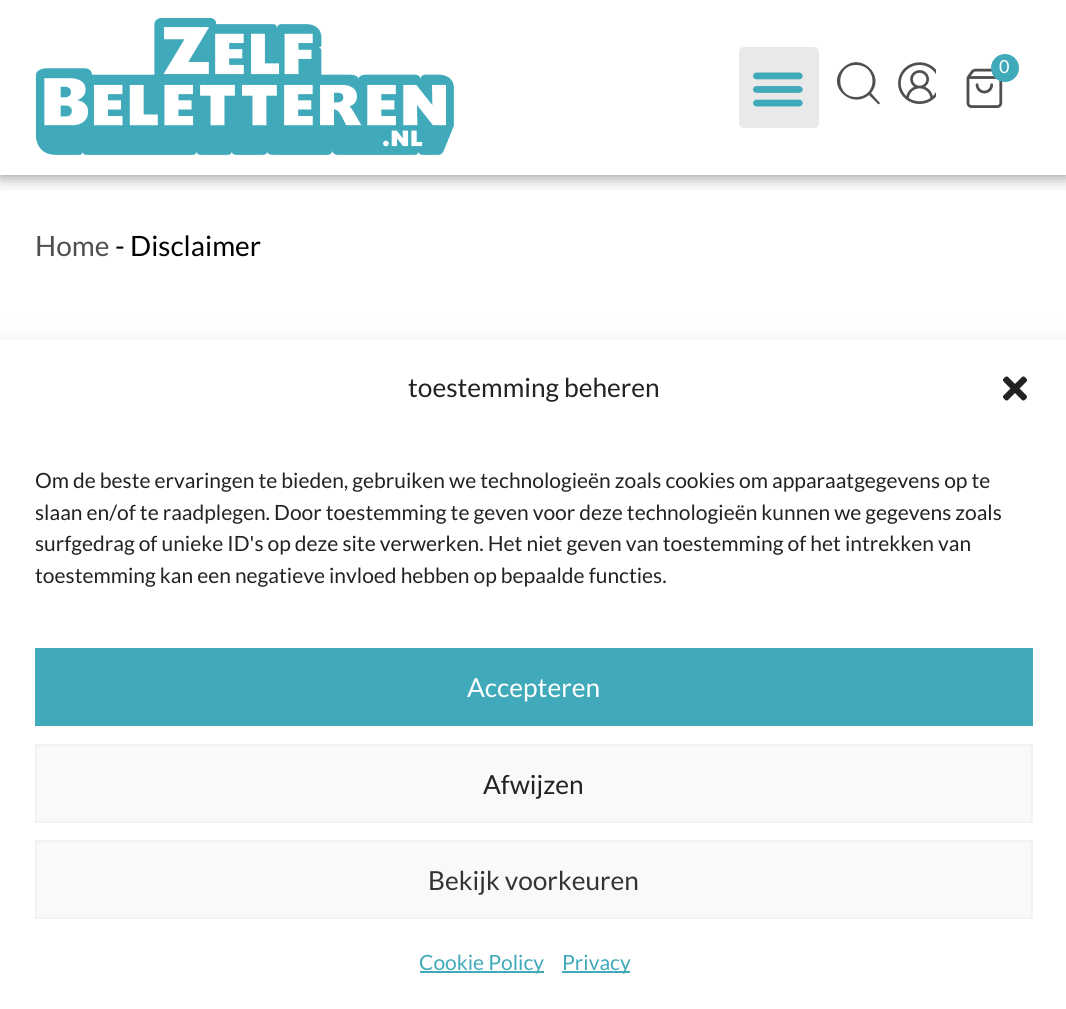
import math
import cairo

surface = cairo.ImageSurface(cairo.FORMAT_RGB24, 1066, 1009)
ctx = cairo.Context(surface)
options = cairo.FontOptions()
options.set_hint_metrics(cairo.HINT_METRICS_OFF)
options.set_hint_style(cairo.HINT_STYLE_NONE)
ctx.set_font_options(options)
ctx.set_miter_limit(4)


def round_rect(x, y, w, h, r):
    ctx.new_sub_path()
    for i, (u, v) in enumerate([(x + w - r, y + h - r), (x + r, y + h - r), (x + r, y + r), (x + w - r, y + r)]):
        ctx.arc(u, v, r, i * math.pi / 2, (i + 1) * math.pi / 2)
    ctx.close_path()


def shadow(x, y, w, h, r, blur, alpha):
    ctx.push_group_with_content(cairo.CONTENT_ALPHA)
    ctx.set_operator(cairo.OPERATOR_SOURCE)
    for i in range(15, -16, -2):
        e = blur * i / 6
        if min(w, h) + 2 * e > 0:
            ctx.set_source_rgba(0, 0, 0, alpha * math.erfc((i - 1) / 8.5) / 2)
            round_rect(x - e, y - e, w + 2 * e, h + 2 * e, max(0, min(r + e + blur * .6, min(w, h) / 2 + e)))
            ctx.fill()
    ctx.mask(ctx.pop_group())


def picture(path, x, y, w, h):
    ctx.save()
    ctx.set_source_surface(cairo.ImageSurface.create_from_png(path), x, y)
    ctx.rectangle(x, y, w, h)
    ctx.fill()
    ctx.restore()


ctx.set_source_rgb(1, 1, 1)
ctx.paint()
ctx.save()
ctx.rectangle(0, 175, 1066, 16)
ctx.clip()
ctx.set_source_rgb(0, 0, 0)
shadow(0, 0, 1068, 175, 0, 9, 0.5)
ctx.restore()
picture("img1.png", 35, 18, 419, 137)
ctx.set_source_rgb(0.914, 0.914, 0.914)
round_rect(739, 47, 80, 81, 5)
ctx.fill()
picture("img2.png", 753, 72, 50, 35)
ctx.set_source_rgb(0.31, 0.31, 0.31)
ctx.new_path()
ctx.move_to(879, 102)
ctx.line_to(871, 93)
ctx.curve_to(886, 75, 860, 51, 843, 68)
ctx.curve_to(825, 85, 851, 110, 869, 95)
ctx.line_to(878, 104)
ctx.curve_to(879, 105, 881, 103, 879, 102)
ctx.close_path()
ctx.move_to(856, 97)
ctx.curve_to(835, 97, 835, 65, 856, 65)
ctx.curve_to(878, 65, 878, 97, 856, 97)
ctx.close_path()
ctx.fill()
picture("img3.png", 898, 62, 38, 42)
picture("img4.png", 966, 68, 37, 40)
ctx.set_source_rgb(0.251, 0.667, 0.729)
ctx.arc(1005, 68, 14, 0, 2 * math.pi)
ctx.fill()
ctx.select_font_face("Lato")
ctx.set_font_size(18)
ctx.set_source_rgb(1, 1, 1)
ctx.move_to(999, 73)
ctx.show_text("0")
ctx.set_font_size(28)
ctx.set_source_rgb(0.31, 0.31, 0.31)
ctx.move_to(35, 256)
ctx.show_text("Home")
ctx.set_source_rgb(0, 0, 0)
ctx.move_to(115, 256)
ctx.show_text("- Disclaimer")
ctx.set_source_rgb(0, 0, 0)
shadow(0, 357, 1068, 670, 0, 17.5, 0.19)
ctx.set_source_rgb(1, 1, 1)
ctx.rectangle(0, 340, 1066, 669)
ctx.fill()
ctx.set_font_size(26.25)
ctx.set_source_rgb(0.133, 0.133, 0.133)
ctx.move_to(408, 397)
ctx.show_text("toestemming beheren")
picture("img5.png", 1003, 376, 24, 25)
ctx.set_font_size(21)
ctx.move_to(35, 488)
ctx.show_text("Om de beste ervaringen te bieden, gebruiken we technologieën zoals cookies om apparaatgegevens op te")
ctx.move_to(35, 520)
ctx.show_text("slaan en/of te raadplegen. Door toestemming te geven voor deze technologieën kunnen we gegevens zoals")
ctx.move_to(35, 551)
ctx.show_text("surfgedrag of unieke ID's op deze site verwerken. Het niet geven van toestemming of het intrekken van")
ctx.move_to(35, 583)
ctx.show_text("toestemming kan een negatieve invloed hebben op bepaalde functies.")
ctx.set_source_rgb(0.255, 0.667, 0.729)
ctx.rectangle(35, 648, 998, 78)
ctx.fill()
ctx.set_font_size(26.25)
ctx.set_source_rgb(1, 1, 1)
ctx.move_to(467, 697)
ctx.show_text("Accepteren")
ctx.set_source_rgb(0.976, 0.976, 0.976)
ctx.rectangle(36, 745, 996, 77)
ctx.fill_preserve()
ctx.set_source_rgb(0.949, 0.949, 0.949)
ctx.stroke()
ctx.set_source_rgb(0.133, 0.133, 0.133)
ctx.move_to(483, 794)
ctx.show_text("Afwijzen")
ctx.set_source_rgb(0.976, 0.976, 0.976)
ctx.rectangle(36, 841, 996, 77)
ctx.fill_preserve()
ctx.set_source_rgb(0.949, 0.949, 0.949)
ctx.stroke()
ctx.set_source_rgb(0.2, 0.2, 0.2)
ctx.move_to(428, 890)
ctx.show_text("Bekijk voorkeuren")
ctx.set_source_rgb(0.255, 0.667, 0.729)
ctx.rectangle(420, 971, 124, 2)
ctx.fill()
ctx.set_font_size(21)
ctx.move_to(419, 970)
ctx.show_text("Cookie Policy")
ctx.rectangle(562, 971, 68, 2)
ctx.fill()
ctx.move_to(562, 970)
ctx.show_text("Privacy")
surface.write_to_png("page.png")
